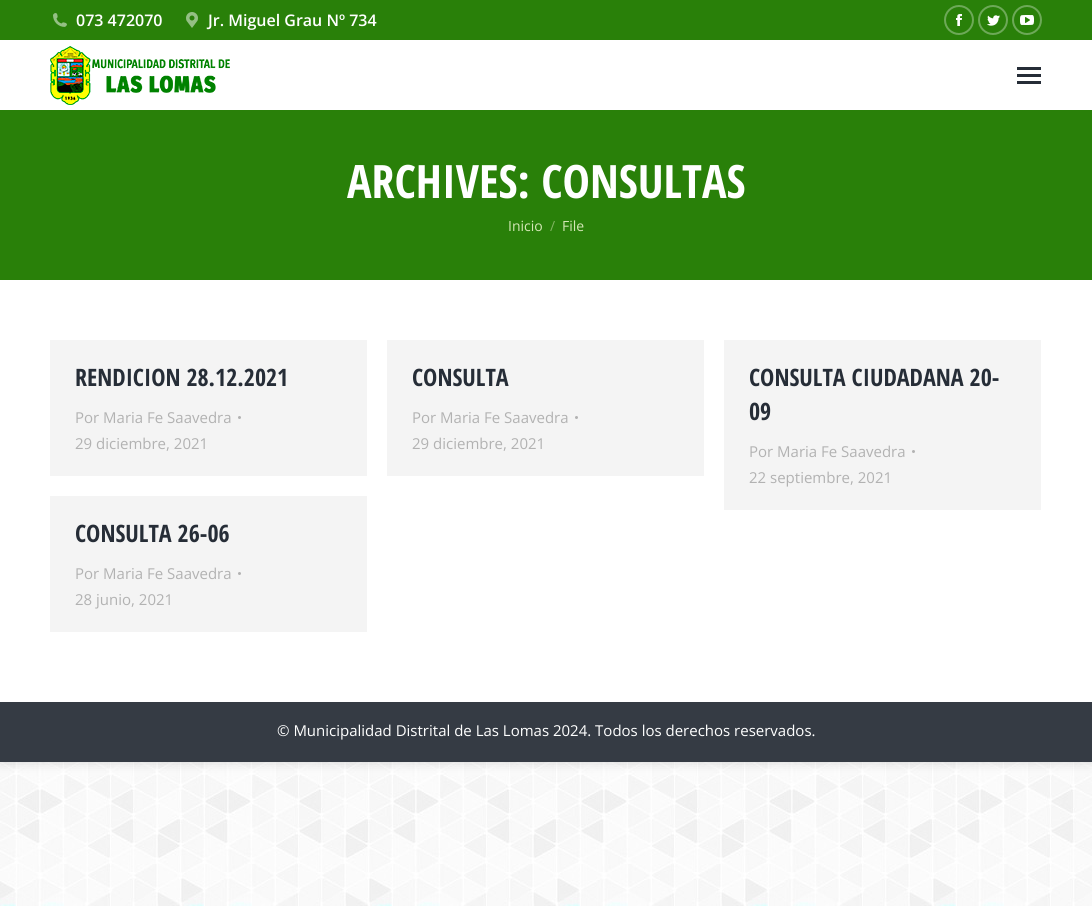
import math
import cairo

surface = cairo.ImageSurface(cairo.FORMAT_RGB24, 1092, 906)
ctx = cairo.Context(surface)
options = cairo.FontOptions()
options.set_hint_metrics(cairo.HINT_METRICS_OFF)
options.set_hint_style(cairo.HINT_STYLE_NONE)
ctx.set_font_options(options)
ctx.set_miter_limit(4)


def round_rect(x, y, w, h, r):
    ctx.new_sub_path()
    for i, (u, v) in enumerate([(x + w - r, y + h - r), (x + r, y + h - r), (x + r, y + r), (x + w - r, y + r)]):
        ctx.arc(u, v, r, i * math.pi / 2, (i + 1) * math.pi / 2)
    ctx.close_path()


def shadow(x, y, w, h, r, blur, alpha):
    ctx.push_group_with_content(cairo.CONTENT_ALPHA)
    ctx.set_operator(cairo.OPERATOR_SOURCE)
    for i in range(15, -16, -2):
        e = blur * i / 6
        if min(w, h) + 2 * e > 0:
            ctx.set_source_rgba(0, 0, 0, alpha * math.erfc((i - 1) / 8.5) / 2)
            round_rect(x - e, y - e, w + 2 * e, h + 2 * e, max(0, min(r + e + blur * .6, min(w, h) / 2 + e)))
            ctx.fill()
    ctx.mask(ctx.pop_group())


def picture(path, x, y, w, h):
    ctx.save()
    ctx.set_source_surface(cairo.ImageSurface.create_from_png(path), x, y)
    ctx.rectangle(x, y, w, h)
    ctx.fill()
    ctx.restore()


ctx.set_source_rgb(1, 1, 1)
ctx.paint()
picture("img1.png", 0, 762, 1092, 144)
ctx.set_source_rgb(0, 0, 0)
shadow(0, 0, 1092, 762, 0, 6, 0.15)
ctx.set_source_rgb(1, 1, 1)
ctx.rectangle(0, 40, 1092, 662)
ctx.fill()
ctx.set_source_rgb(0.161, 0.502, 0.039)
ctx.rectangle(0, 0, 1092, 40)
ctx.fill()
picture("img2.png", 53, 13, 14, 14)
ctx.select_font_face("Open Sans SemiBold")
ctx.set_font_size(16)
ctx.set_source_rgb(1, 1, 1)
ctx.move_to(76, 26)
ctx.show_text("073 472070")
picture("img3.png", 186, 12, 12, 16)
ctx.move_to(208, 26)
ctx.show_text("Jr. Miguel Grau Nº 734")
ctx.new_path()
ctx.arc(959, 20, 14, 0, 2 * math.pi)
ctx.set_source_rgb(0.427, 0.663, 0.345)
ctx.stroke()
picture("img4.png", 956, 14, 6, 12)
ctx.arc(993, 20, 14, 0, 2 * math.pi)
ctx.stroke()
picture("img5.png", 987, 15, 13, 11)
ctx.arc(1027, 20, 14, 0, 2 * math.pi)
ctx.stroke()
picture("img6.png", 1020, 15, 14, 10)
picture("img7.png", 50, 46, 180, 59)
ctx.set_source_rgb(0.149, 0.176, 0.216)
ctx.rectangle(1017, 67, 24, 3)
ctx.fill()
ctx.rectangle(1017, 74, 24, 3)
ctx.fill()
ctx.rectangle(1017, 81, 24, 3)
ctx.fill()
ctx.set_source_rgb(0.161, 0.502, 0.039)
ctx.rectangle(0, 110, 1092, 170)
ctx.fill()
ctx.select_font_face("Open Sans Condensed", cairo.FONT_SLANT_NORMAL, cairo.FONT_WEIGHT_BOLD)
ctx.set_font_size(46)
ctx.set_source_rgb(1, 1, 1)
ctx.move_to(347, 198)
ctx.show_text("ARCHIVES: CONSULTAS")
ctx.select_font_face("Open Sans")
ctx.set_font_size(14)
ctx.set_source_rgb(0.831, 0.906, 0.714)
ctx.move_to(508, 231)
ctx.show_text("Inicio")
ctx.set_source_rgb(0.498, 0.706, 0.376)
ctx.move_to(550, 231)
ctx.show_text("/")
ctx.set_source_rgb(0.831, 0.906, 0.714)
ctx.move_to(562, 231)
ctx.show_text("File")
ctx.set_source_rgb(0.957, 0.957, 0.957)
ctx.rectangle(50, 340, 317, 136)
ctx.fill()
ctx.select_font_face("Open Sans Condensed", cairo.FONT_SLANT_NORMAL, cairo.FONT_WEIGHT_BOLD)
ctx.set_font_size(24)
ctx.set_source_rgb(0.149, 0.176, 0.216)
ctx.move_to(75, 386)
ctx.show_text("RENDICION 28.12.2021")
ctx.select_font_face("Open Sans")
ctx.set_font_size(15)
ctx.set_source_rgb(0.698, 0.698, 0.698)
ctx.move_to(75, 423)
ctx.show_text("Por Maria Fe Saavedra")
ctx.new_path()
ctx.arc(239.5, 417.5, 1.5, 0, 2 * math.pi)
ctx.fill()
ctx.move_to(75, 449)
ctx.show_text("29 diciembre, 2021")
ctx.set_source_rgb(0.957, 0.957, 0.957)
ctx.rectangle(387, 340, 317, 136)
ctx.fill()
ctx.select_font_face("Open Sans Condensed", cairo.FONT_SLANT_NORMAL, cairo.FONT_WEIGHT_BOLD)
ctx.set_font_size(24)
ctx.set_source_rgb(0.149, 0.176, 0.216)
ctx.move_to(412, 386)
ctx.show_text("CONSULTA")
ctx.select_font_face("Open Sans")
ctx.set_font_size(15)
ctx.set_source_rgb(0.698, 0.698, 0.698)
ctx.move_to(412, 423)
ctx.show_text("Por Maria Fe Saavedra")
ctx.new_path()
ctx.arc(576.5, 417.5, 1.5, 0, 2 * math.pi)
ctx.fill()
ctx.move_to(412, 449)
ctx.show_text("29 diciembre, 2021")
ctx.set_source_rgb(0.957, 0.957, 0.957)
ctx.rectangle(724, 340, 317, 170)
ctx.fill()
ctx.select_font_face("Open Sans Condensed", cairo.FONT_SLANT_NORMAL, cairo.FONT_WEIGHT_BOLD)
ctx.set_font_size(24)
ctx.set_source_rgb(0.149, 0.176, 0.216)
ctx.move_to(749, 386)
ctx.show_text("CONSULTA CIUDADANA 20-")
ctx.move_to(749, 420)
ctx.show_text("09")
ctx.select_font_face("Open Sans")
ctx.set_font_size(15)
ctx.set_source_rgb(0.698, 0.698, 0.698)
ctx.move_to(749, 457)
ctx.show_text("Por Maria Fe Saavedra")
ctx.new_path()
ctx.arc(913.5, 451.5, 1.5, 0, 2 * math.pi)
ctx.fill()
ctx.move_to(749, 483)
ctx.show_text("22 septiembre, 2021")
ctx.set_source_rgb(0.957, 0.957, 0.957)
ctx.rectangle(50, 496, 317, 136)
ctx.fill()
ctx.select_font_face("Open Sans Condensed", cairo.FONT_SLANT_NORMAL, cairo.FONT_WEIGHT_BOLD)
ctx.set_font_size(24)
ctx.set_source_rgb(0.149, 0.176, 0.216)
ctx.move_to(75, 542)
ctx.show_text("CONSULTA 26-06")
ctx.select_font_face("Open Sans")
ctx.set_font_size(15)
ctx.set_source_rgb(0.698, 0.698, 0.698)
ctx.move_to(75, 579)
ctx.show_text("Por Maria Fe Saavedra")
ctx.new_path()
ctx.arc(239.5, 573.5, 1.5, 0, 2 * math.pi)
ctx.fill()
ctx.move_to(75, 605)
ctx.show_text("28 junio, 2021")
ctx.set_source_rgb(0.208, 0.231, 0.267)
ctx.rectangle(0, 702, 1092, 60)
ctx.fill()
ctx.set_source_rgb(1, 1, 1)
ctx.move_to(277, 736)
ctx.show_text("© Municipalidad Distrital de Las Lomas 2024. Todos los derechos reservados.")
surface.write_to_png("page.png")
